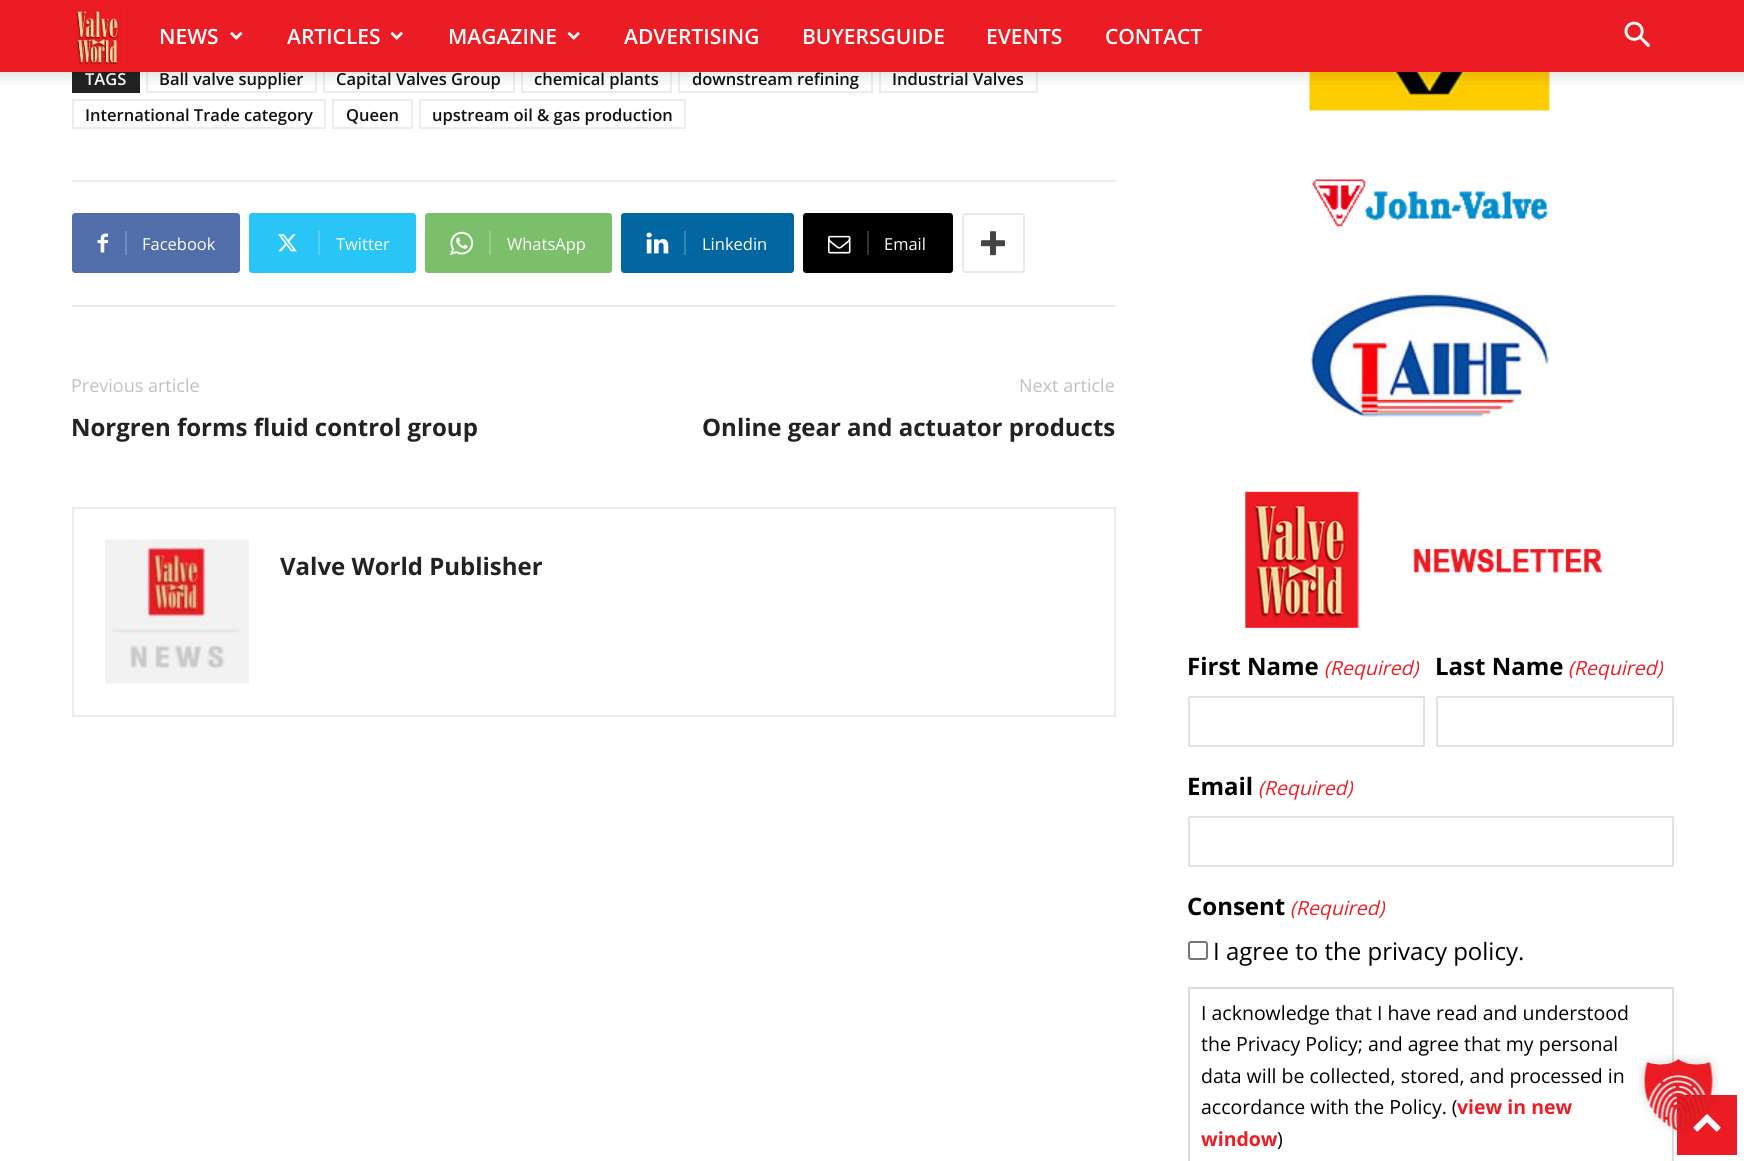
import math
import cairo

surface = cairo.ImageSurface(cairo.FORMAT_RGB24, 1744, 1161)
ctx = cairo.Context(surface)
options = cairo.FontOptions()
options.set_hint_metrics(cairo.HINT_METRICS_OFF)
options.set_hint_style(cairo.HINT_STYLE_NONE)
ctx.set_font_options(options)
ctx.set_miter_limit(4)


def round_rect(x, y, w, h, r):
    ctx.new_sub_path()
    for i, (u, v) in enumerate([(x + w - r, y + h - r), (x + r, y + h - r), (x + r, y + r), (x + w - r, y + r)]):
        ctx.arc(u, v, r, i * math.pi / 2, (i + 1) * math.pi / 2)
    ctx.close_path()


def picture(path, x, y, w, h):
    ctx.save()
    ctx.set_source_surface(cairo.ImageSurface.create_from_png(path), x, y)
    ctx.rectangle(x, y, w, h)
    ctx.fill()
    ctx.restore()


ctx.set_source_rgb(1, 1, 1)
ctx.paint()
ctx.rectangle(147, 64, 169, 28)
ctx.set_source_rgb(0.929, 0.929, 0.929)
ctx.stroke()
ctx.rectangle(324, 64, 190, 28)
ctx.stroke()
ctx.rectangle(522, 64, 149, 28)
ctx.stroke()
ctx.rectangle(679, 64, 193, 28)
ctx.stroke()
ctx.rectangle(880, 64, 157, 28)
ctx.stroke()
ctx.set_source_rgb(0.922, 0.11, 0.141)
ctx.rectangle(0, 0, 1744, 72)
ctx.fill()
picture("img1.png", 75, 6, 49, 63)
ctx.select_font_face("Open Sans SemiBold")
ctx.set_font_size(21)
ctx.set_source_rgb(1, 1, 1)
ctx.move_to(159, 44)
ctx.show_text("NEWS")
picture("img2.png", 230, 32, 13, 8)
ctx.move_to(287, 44)
ctx.show_text("ARTICLES")
picture("img3.png", 390, 32, 13, 8)
ctx.move_to(448, 44)
ctx.show_text("MAGAZINE")
picture("img3.png", 567, 32, 13, 8)
ctx.move_to(624, 44)
ctx.show_text("ADVERTISING")
ctx.move_to(802, 44)
ctx.show_text("BUYERSGUIDE")
ctx.move_to(986, 44)
ctx.show_text("EVENTS")
ctx.move_to(1105, 44)
ctx.show_text("CONTACT")
picture("img4.png", 1624, 21, 26, 26)
ctx.set_source_rgb(0.133, 0.133, 0.133)
ctx.rectangle(72, 72, 68, 21)
ctx.fill()
ctx.set_font_size(16.5)
ctx.set_source_rgb(1, 1, 1)
ctx.move_to(85, 85)
ctx.show_text("TAGS")
ctx.set_source_rgb(0.067, 0.067, 0.067)
ctx.move_to(159, 85)
ctx.show_text("Ball valve supplier")
ctx.move_to(336, 85)
ctx.show_text("Capital Valves Group")
ctx.move_to(534, 85)
ctx.show_text("chemical plants")
ctx.move_to(692, 85)
ctx.show_text("downstream refining")
ctx.move_to(892, 85)
ctx.show_text("Industrial Valves")
picture("img13.png", 1309, 72, 241, 39)
picture("img5.png", 0, 72, 1744, 13)
ctx.rectangle(73, 100, 252, 28)
ctx.set_source_rgb(0.929, 0.929, 0.929)
ctx.stroke()
ctx.set_source_rgb(0.067, 0.067, 0.067)
ctx.move_to(85, 121)
ctx.show_text("International Trade category")
ctx.rectangle(333, 100, 79, 28)
ctx.set_source_rgb(0.929, 0.929, 0.929)
ctx.stroke()
ctx.set_source_rgb(0.067, 0.067, 0.067)
ctx.move_to(346, 121)
ctx.show_text("Queen")
ctx.rectangle(420, 100, 265, 28)
ctx.set_source_rgb(0.929, 0.929, 0.929)
ctx.stroke()
ctx.set_source_rgb(0.067, 0.067, 0.067)
ctx.move_to(432, 121)
ctx.show_text("upstream oil & gas production")
ctx.set_source_rgb(0.929, 0.929, 0.929)
ctx.rectangle(72, 180, 1044, 2)
ctx.fill()
ctx.rectangle(72, 305, 1044, 2)
ctx.fill()
ctx.set_source_rgb(0.318, 0.431, 0.671)
ctx.new_path()
ctx.move_to(125, 213)
ctx.line_to(237, 213)
ctx.curve_to(238.5, 213, 240, 214.5, 240, 216)
ctx.line_to(240, 270)
ctx.curve_to(240, 271.5, 238.5, 273, 237, 273)
ctx.line_to(125, 273)
ctx.close_path()
ctx.fill()
ctx.new_path()
ctx.move_to(75, 213)
ctx.line_to(134, 213)
ctx.line_to(134, 273)
ctx.line_to(75, 273)
ctx.curve_to(73.5, 273, 72, 271.5, 72, 270)
ctx.line_to(72, 216)
ctx.curve_to(72, 214.5, 73.5, 213, 75, 213)
ctx.close_path()
ctx.fill()
picture("img6.png", 97, 233, 11, 20)
ctx.set_source_rgb(0.455, 0.545, 0.737)
ctx.rectangle(125, 231, 2, 24)
ctx.fill()
ctx.select_font_face("Open Sans")
ctx.set_source_rgb(1, 1, 1)
ctx.move_to(142, 250)
ctx.show_text("Facebook")
ctx.set_source_rgb(0.161, 0.773, 0.965)
ctx.new_path()
ctx.move_to(318, 213)
ctx.line_to(413, 213)
ctx.curve_to(414.5, 213, 416, 214.5, 416, 216)
ctx.line_to(416, 270)
ctx.curve_to(416, 271.5, 414.5, 273, 413, 273)
ctx.line_to(318, 273)
ctx.close_path()
ctx.fill()
ctx.new_path()
ctx.move_to(252, 213)
ctx.line_to(327, 213)
ctx.line_to(327, 273)
ctx.line_to(252, 273)
ctx.curve_to(250.5, 273, 249, 271.5, 249, 270)
ctx.line_to(249, 216)
ctx.curve_to(249, 214.5, 250.5, 213, 252, 213)
ctx.close_path()
ctx.fill()
picture("img7.png", 278, 234, 19, 18)
ctx.set_source_rgb(0.329, 0.82, 0.973)
ctx.rectangle(318, 231, 2, 24)
ctx.fill()
ctx.set_source_rgb(1, 1, 1)
ctx.move_to(336, 250)
ctx.show_text("Twitter")
ctx.set_source_rgb(0.482, 0.749, 0.416)
ctx.new_path()
ctx.move_to(489, 213)
ctx.line_to(609, 213)
ctx.curve_to(610.5, 213, 612, 214.5, 612, 216)
ctx.line_to(612, 270)
ctx.curve_to(612, 271.5, 610.5, 273, 609, 273)
ctx.line_to(489, 273)
ctx.close_path()
ctx.fill()
ctx.new_path()
ctx.move_to(428, 213)
ctx.line_to(498, 213)
ctx.line_to(498, 273)
ctx.line_to(428, 273)
ctx.curve_to(426.5, 273, 425, 271.5, 425, 270)
ctx.line_to(425, 216)
ctx.curve_to(425, 214.5, 426.5, 213, 428, 213)
ctx.close_path()
ctx.fill()
picture("img8.png", 450, 231, 24, 24)
ctx.set_source_rgb(0.584, 0.8, 0.533)
ctx.rectangle(489, 231, 2, 24)
ctx.fill()
ctx.set_source_rgb(1, 1, 1)
ctx.move_to(507, 250)
ctx.show_text("WhatsApp")
ctx.set_source_rgb(0.008, 0.4, 0.627)
ctx.new_path()
ctx.move_to(684, 213)
ctx.line_to(791, 213)
ctx.curve_to(792.5, 213, 794, 214.5, 794, 216)
ctx.line_to(794, 270)
ctx.curve_to(794, 271.5, 792.5, 273, 791, 273)
ctx.line_to(684, 273)
ctx.close_path()
ctx.fill()
ctx.new_path()
ctx.move_to(624, 213)
ctx.line_to(693, 213)
ctx.line_to(693, 273)
ctx.line_to(624, 273)
ctx.curve_to(622.5, 273, 621, 271.5, 621, 270)
ctx.line_to(621, 216)
ctx.curve_to(621, 214.5, 622.5, 213, 624, 213)
ctx.close_path()
ctx.fill()
picture("img9.png", 646, 232, 23, 22)
ctx.set_source_rgb(0.208, 0.522, 0.702)
ctx.rectangle(684, 231, 2, 24)
ctx.fill()
ctx.set_source_rgb(1, 1, 1)
ctx.move_to(702, 250)
ctx.show_text("Linkedin")
ctx.set_source_rgb(0, 0, 0)
ctx.new_path()
ctx.move_to(867, 213)
ctx.line_to(950, 213)
ctx.curve_to(951.5, 213, 953, 214.5, 953, 216)
ctx.line_to(953, 270)
ctx.curve_to(953, 271.5, 951.5, 273, 950, 273)
ctx.line_to(867, 273)
ctx.close_path()
ctx.fill()
ctx.new_path()
ctx.move_to(806, 213)
ctx.line_to(876, 213)
ctx.line_to(876, 273)
ctx.line_to(806, 273)
ctx.curve_to(804.5, 273, 803, 271.5, 803, 270)
ctx.line_to(803, 216)
ctx.curve_to(803, 214.5, 804.5, 213, 806, 213)
ctx.close_path()
ctx.fill()
picture("img10.png", 828, 235, 23, 19)
ctx.set_source_rgb(0.2, 0.2, 0.2)
ctx.rectangle(867, 231, 2, 24)
ctx.fill()
ctx.set_source_rgb(1, 1, 1)
ctx.move_to(884, 250)
ctx.show_text("Email")
round_rect(963, 214, 61, 58, 2)
ctx.set_source_rgb(0.914, 0.914, 0.914)
ctx.stroke()
picture("img11.png", 981, 231, 24, 25)
ctx.set_font_size(18)
ctx.set_source_rgb(0.757, 0.757, 0.757)
ctx.move_to(71, 392)
ctx.show_text("Previous article")
ctx.select_font_face("Open Sans", cairo.FONT_SLANT_NORMAL, cairo.FONT_WEIGHT_BOLD)
ctx.set_font_size(24)
ctx.set_source_rgb(0.133, 0.133, 0.133)
ctx.move_to(71, 436)
ctx.show_text("Norgren forms fluid control group")
ctx.select_font_face("Open Sans")
ctx.set_font_size(18)
ctx.set_source_rgb(0.757, 0.757, 0.757)
ctx.move_to(1019, 392)
ctx.show_text("Next article")
ctx.select_font_face("Open Sans", cairo.FONT_SLANT_NORMAL, cairo.FONT_WEIGHT_BOLD)
ctx.set_font_size(24)
ctx.set_source_rgb(0.133, 0.133, 0.133)
ctx.move_to(702, 436)
ctx.show_text("Online gear and actuator products")
ctx.rectangle(73, 508, 1042, 208)
ctx.set_source_rgb(0.929, 0.929, 0.929)
ctx.stroke()
picture("img12.png", 105, 539, 144, 145)
ctx.set_source_rgb(0.133, 0.133, 0.133)
ctx.move_to(280, 575)
ctx.show_text("Valve World Publisher")
picture("img14.png", 1312, 179, 237, 48)
picture("img15.png", 1309, 293, 241, 124)
picture("img16.png", 1240, 490, 363, 138)
ctx.set_source_rgb(0, 0, 0)
ctx.move_to(1187, 675)
ctx.show_text("First Name")
ctx.select_font_face("Open Sans", cairo.FONT_SLANT_ITALIC)
ctx.set_font_size(19.5)
ctx.set_source_rgb(0.925, 0.114, 0.141)
ctx.move_to(1324, 675)
ctx.show_text("(Required)")
round_rect(1189, 697, 235, 49, 0.5)
ctx.set_source_rgb(0.882, 0.882, 0.882)
ctx.stroke()
ctx.select_font_face("Open Sans", cairo.FONT_SLANT_NORMAL, cairo.FONT_WEIGHT_BOLD)
ctx.set_font_size(24)
ctx.set_source_rgb(0, 0, 0)
ctx.move_to(1435, 675)
ctx.show_text("Last Name")
ctx.select_font_face("Open Sans", cairo.FONT_SLANT_ITALIC)
ctx.set_font_size(19.5)
ctx.set_source_rgb(0.925, 0.114, 0.141)
ctx.move_to(1568, 675)
ctx.show_text("(Required)")
round_rect(1437, 697, 236, 49, 0.5)
ctx.set_source_rgb(0.882, 0.882, 0.882)
ctx.stroke()
ctx.select_font_face("Open Sans", cairo.FONT_SLANT_NORMAL, cairo.FONT_WEIGHT_BOLD)
ctx.set_font_size(24)
ctx.set_source_rgb(0, 0, 0)
ctx.move_to(1187, 795)
ctx.show_text("Email")
ctx.select_font_face("Open Sans", cairo.FONT_SLANT_ITALIC)
ctx.set_font_size(19.5)
ctx.set_source_rgb(0.925, 0.114, 0.141)
ctx.move_to(1258, 795)
ctx.show_text("(Required)")
round_rect(1189, 817, 484, 49, 0.5)
ctx.set_source_rgb(0.882, 0.882, 0.882)
ctx.stroke()
ctx.select_font_face("Open Sans", cairo.FONT_SLANT_NORMAL, cairo.FONT_WEIGHT_BOLD)
ctx.set_font_size(24)
ctx.set_source_rgb(0, 0, 0)
ctx.move_to(1187, 915)
ctx.show_text("Consent")
ctx.select_font_face("Open Sans", cairo.FONT_SLANT_ITALIC)
ctx.set_font_size(19.5)
ctx.set_source_rgb(0.925, 0.114, 0.141)
ctx.move_to(1290, 915)
ctx.show_text("(Required)")
round_rect(1189, 942, 18, 17, 2)
ctx.set_source_rgb(0.463, 0.463, 0.463)
ctx.stroke()
ctx.select_font_face("Open Sans")
ctx.set_font_size(24)
ctx.set_source_rgb(0, 0, 0)
ctx.move_to(1213, 960)
ctx.show_text("I agree to the privacy policy.")
ctx.rectangle(1189, 988, 484, 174)
ctx.set_source_rgb(0.867, 0.867, 0.867)
ctx.stroke()
ctx.set_font_size(19.5)
ctx.set_source_rgb(0, 0, 0)
ctx.move_to(1201, 1020)
ctx.show_text("I acknowledge that I have read and understood")
ctx.move_to(1201, 1051)
ctx.show_text("the Privacy Policy; and agree that my personal")
ctx.move_to(1201, 1083)
ctx.show_text("data will be collected, stored, and processed in")
ctx.move_to(1201, 1114)
ctx.show_text("accordance with the Policy. (")
ctx.select_font_face("Open Sans", cairo.FONT_SLANT_NORMAL, cairo.FONT_WEIGHT_BOLD)
ctx.set_source_rgb(0.925, 0.114, 0.141)
ctx.move_to(1457, 1114)
ctx.show_text("view in new")
ctx.move_to(1201, 1146)
ctx.show_text("window")
ctx.select_font_face("Open Sans")
ctx.set_source_rgb(0, 0, 0)
ctx.move_to(1277, 1146)
ctx.show_text(")")
ctx.set_source_rgb(0.922, 0.11, 0.141)
ctx.rectangle(1677, 1095, 60, 60)
ctx.fill()
picture("img18.png", 1693, 1114, 28, 18)
picture("img17.png", 1638, 1054, 81, 81)
surface.write_to_png("page.png")
